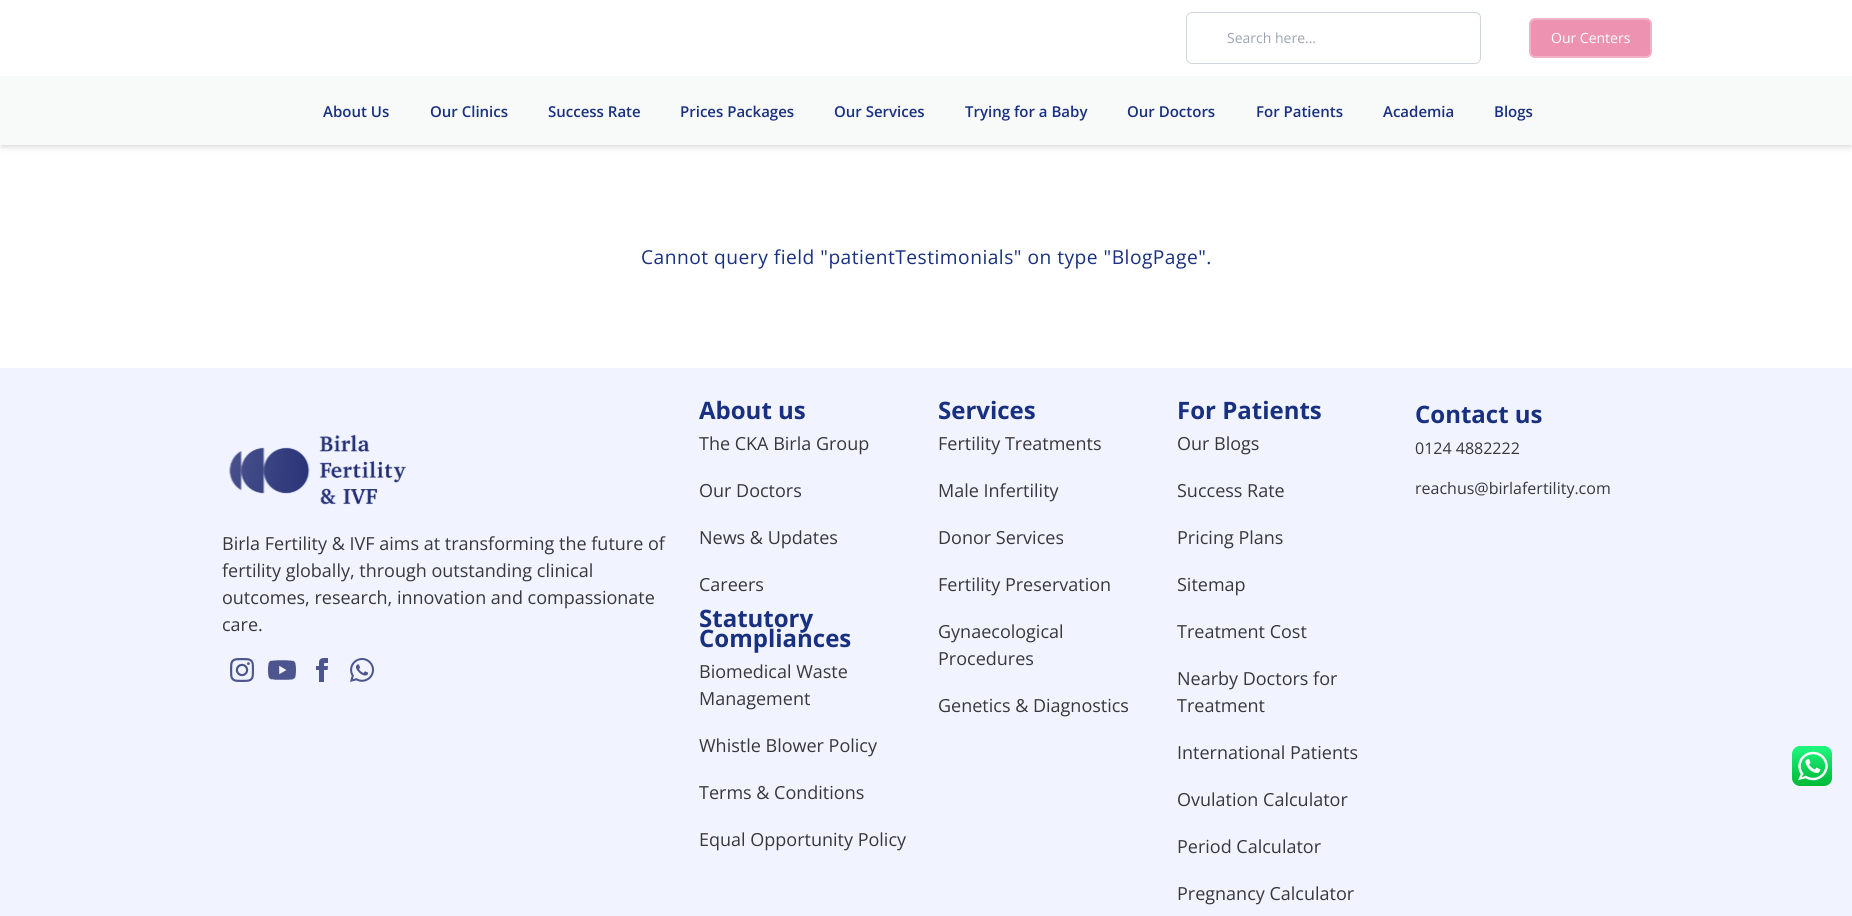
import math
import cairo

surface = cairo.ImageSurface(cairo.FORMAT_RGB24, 1852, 916)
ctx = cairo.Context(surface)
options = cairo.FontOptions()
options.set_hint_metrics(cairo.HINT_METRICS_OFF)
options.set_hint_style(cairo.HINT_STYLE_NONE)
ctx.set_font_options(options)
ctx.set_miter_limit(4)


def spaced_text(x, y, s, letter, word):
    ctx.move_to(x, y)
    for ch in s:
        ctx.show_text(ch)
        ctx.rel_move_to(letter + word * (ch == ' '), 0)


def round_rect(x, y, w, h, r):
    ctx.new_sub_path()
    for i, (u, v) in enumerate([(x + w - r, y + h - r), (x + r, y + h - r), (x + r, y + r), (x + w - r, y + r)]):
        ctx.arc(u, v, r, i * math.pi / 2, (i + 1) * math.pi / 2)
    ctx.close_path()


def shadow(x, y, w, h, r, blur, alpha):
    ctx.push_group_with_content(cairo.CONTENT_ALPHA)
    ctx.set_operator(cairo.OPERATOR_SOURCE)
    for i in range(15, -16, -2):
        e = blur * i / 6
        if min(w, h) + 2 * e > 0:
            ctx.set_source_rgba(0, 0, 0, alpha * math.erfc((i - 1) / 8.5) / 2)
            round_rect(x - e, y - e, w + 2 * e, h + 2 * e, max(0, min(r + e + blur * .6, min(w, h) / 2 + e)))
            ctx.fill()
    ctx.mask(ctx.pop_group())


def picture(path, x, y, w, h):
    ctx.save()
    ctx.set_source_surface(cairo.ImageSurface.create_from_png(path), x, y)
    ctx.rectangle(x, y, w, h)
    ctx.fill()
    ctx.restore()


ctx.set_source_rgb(1, 1, 1)
ctx.paint()
ctx.set_source_rgb(0, 0, 0)
shadow(2, 4, 1848, 141, 0, 2, 0.1)
shadow(1, 5, 1850, 143, 0, 3, 0.1)
ctx.set_source_rgb(1, 1, 1)
ctx.rectangle(0, 0, 1852, 76)
ctx.fill()
round_rect(1186.5, 12.5, 294, 51, 5.5)
ctx.set_source_rgb(0.82, 0.839, 0.871)
ctx.set_line_width(1)
ctx.stroke()
ctx.select_font_face("Open Sans")
ctx.set_font_size(14)
ctx.set_source_rgb(0.612, 0.639, 0.686)
ctx.move_to(1227, 43)
ctx.show_text("Search here...")
ctx.set_source_rgb(0.929, 0.573, 0.694)
round_rect(1530, 19, 121, 38, 5)
ctx.fill_preserve()
ctx.set_source_rgb(0.945, 0.694, 0.78)
ctx.set_line_width(2)
ctx.stroke()
ctx.set_source_rgb(1, 1, 1)
ctx.move_to(1551, 43)
ctx.show_text("Our Centers")
ctx.set_source_rgb(0.969, 0.973, 0.976)
ctx.rectangle(0, 76, 1852, 69)
ctx.fill()
ctx.select_font_face("Open Sans SemiBold")
ctx.set_font_size(15)
ctx.set_source_rgb(0.094, 0.188, 0.498)
ctx.move_to(323, 117)
ctx.show_text("About Us")
ctx.move_to(430, 117)
ctx.show_text("Our Clinics")
ctx.move_to(548, 117)
ctx.show_text("Success Rate")
ctx.move_to(680, 117)
ctx.show_text("Prices Packages")
ctx.move_to(834, 117)
ctx.show_text("Our Services")
ctx.move_to(965, 117)
ctx.show_text("Trying for a Baby")
ctx.move_to(1127, 117)
ctx.show_text("Our Doctors")
ctx.move_to(1256, 117)
ctx.show_text("For Patients")
ctx.move_to(1383, 117)
ctx.show_text("Academia")
ctx.move_to(1494, 117)
ctx.show_text("Blogs")
ctx.select_font_face("Open Sans")
ctx.set_font_size(19.2)
spaced_text(641, 264, "Cannot query field \"patientTestimonials\" on type \"BlogPage\".", 0.48, 0)
ctx.set_source_rgb(0.945, 0.957, 1)
ctx.rectangle(0, 368, 1852, 548)
ctx.fill()
picture("img1.png", 229, 434, 177, 71)
ctx.set_font_size(18)
ctx.set_source_rgb(0.212, 0.22, 0.227)
ctx.move_to(222, 550)
ctx.show_text("Birla Fertility & IVF aims at transforming the future of")
ctx.move_to(222, 577)
ctx.show_text("fertility globally, through outstanding clinical")
ctx.move_to(222, 604)
ctx.show_text("outcomes, research, innovation and compassionate")
ctx.move_to(222, 631)
ctx.show_text("care.")
picture("img2.png", 230, 658, 24, 24)
picture("img3.png", 268, 660, 28, 20)
picture("img4.png", 316, 658, 12, 24)
picture("img5.png", 350, 658, 24, 24)
ctx.select_font_face("Open Sans", cairo.FONT_SLANT_NORMAL, cairo.FONT_WEIGHT_BOLD)
ctx.set_font_size(24)
ctx.set_source_rgb(0.094, 0.188, 0.498)
ctx.move_to(699, 419)
ctx.show_text("About us")
ctx.select_font_face("Open Sans")
ctx.set_font_size(18)
ctx.set_source_rgb(0.212, 0.22, 0.227)
ctx.move_to(699, 450)
ctx.show_text("The CKA Birla Group")
ctx.move_to(699, 497)
ctx.show_text("Our Doctors")
ctx.move_to(699, 544)
ctx.show_text("News & Updates")
ctx.move_to(699, 591)
ctx.show_text("Careers")
ctx.select_font_face("Open Sans", cairo.FONT_SLANT_NORMAL, cairo.FONT_WEIGHT_BOLD)
ctx.set_font_size(24)
ctx.set_source_rgb(0.094, 0.188, 0.498)
ctx.move_to(699, 627)
ctx.show_text("Statutory")
ctx.move_to(699, 647)
ctx.show_text("Compliances")
ctx.select_font_face("Open Sans")
ctx.set_font_size(18)
ctx.set_source_rgb(0.212, 0.22, 0.227)
ctx.move_to(699, 678)
ctx.show_text("Biomedical Waste")
ctx.move_to(699, 705)
ctx.show_text("Management")
ctx.move_to(699, 752)
ctx.show_text("Whistle Blower Policy")
ctx.move_to(699, 799)
ctx.show_text("Terms & Conditions")
ctx.move_to(699, 846)
ctx.show_text("Equal Opportunity Policy")
ctx.select_font_face("Open Sans", cairo.FONT_SLANT_NORMAL, cairo.FONT_WEIGHT_BOLD)
ctx.set_font_size(24)
ctx.set_source_rgb(0.094, 0.188, 0.498)
ctx.move_to(938, 419)
ctx.show_text("Services")
ctx.select_font_face("Open Sans")
ctx.set_font_size(18)
ctx.set_source_rgb(0.212, 0.22, 0.227)
ctx.move_to(938, 450)
ctx.show_text("Fertility Treatments")
ctx.move_to(938, 497)
ctx.show_text("Male Infertility")
ctx.move_to(938, 544)
ctx.show_text("Donor Services")
ctx.move_to(938, 591)
ctx.show_text("Fertility Preservation")
ctx.move_to(938, 638)
ctx.show_text("Gynaecological")
ctx.move_to(938, 665)
ctx.show_text("Procedures")
ctx.move_to(938, 712)
ctx.show_text("Genetics & Diagnostics")
ctx.select_font_face("Open Sans", cairo.FONT_SLANT_NORMAL, cairo.FONT_WEIGHT_BOLD)
ctx.set_font_size(24)
ctx.set_source_rgb(0.094, 0.188, 0.498)
ctx.move_to(1177, 419)
ctx.show_text("For Patients")
ctx.select_font_face("Open Sans")
ctx.set_font_size(18)
ctx.set_source_rgb(0.212, 0.22, 0.227)
ctx.move_to(1177, 450)
ctx.show_text("Our Blogs")
ctx.move_to(1177, 497)
ctx.show_text("Success Rate")
ctx.move_to(1177, 544)
ctx.show_text("Pricing Plans")
ctx.move_to(1177, 591)
ctx.show_text("Sitemap")
ctx.move_to(1177, 638)
ctx.show_text("Treatment Cost")
ctx.move_to(1177, 685)
ctx.show_text("Nearby Doctors for")
ctx.move_to(1177, 712)
ctx.show_text("Treatment")
ctx.move_to(1177, 759)
ctx.show_text("International Patients")
ctx.move_to(1177, 806)
ctx.show_text("Ovulation Calculator")
ctx.move_to(1177, 853)
ctx.show_text("Period Calculator")
ctx.move_to(1177, 900)
ctx.show_text("Pregnancy Calculator")
ctx.select_font_face("Open Sans", cairo.FONT_SLANT_NORMAL, cairo.FONT_WEIGHT_BOLD)
ctx.set_font_size(24)
ctx.set_source_rgb(0.094, 0.188, 0.498)
ctx.move_to(1415, 423)
ctx.show_text("Contact us")
ctx.select_font_face("Open Sans")
ctx.set_font_size(16)
ctx.set_source_rgb(0.212, 0.22, 0.227)
ctx.move_to(1415, 454)
ctx.show_text("0124 4882222")
ctx.move_to(1415, 494)
ctx.show_text("reachus@birlafertility.com")
picture("img6.png", 1792, 746, 40, 40)
surface.write_to_png("page.png")
